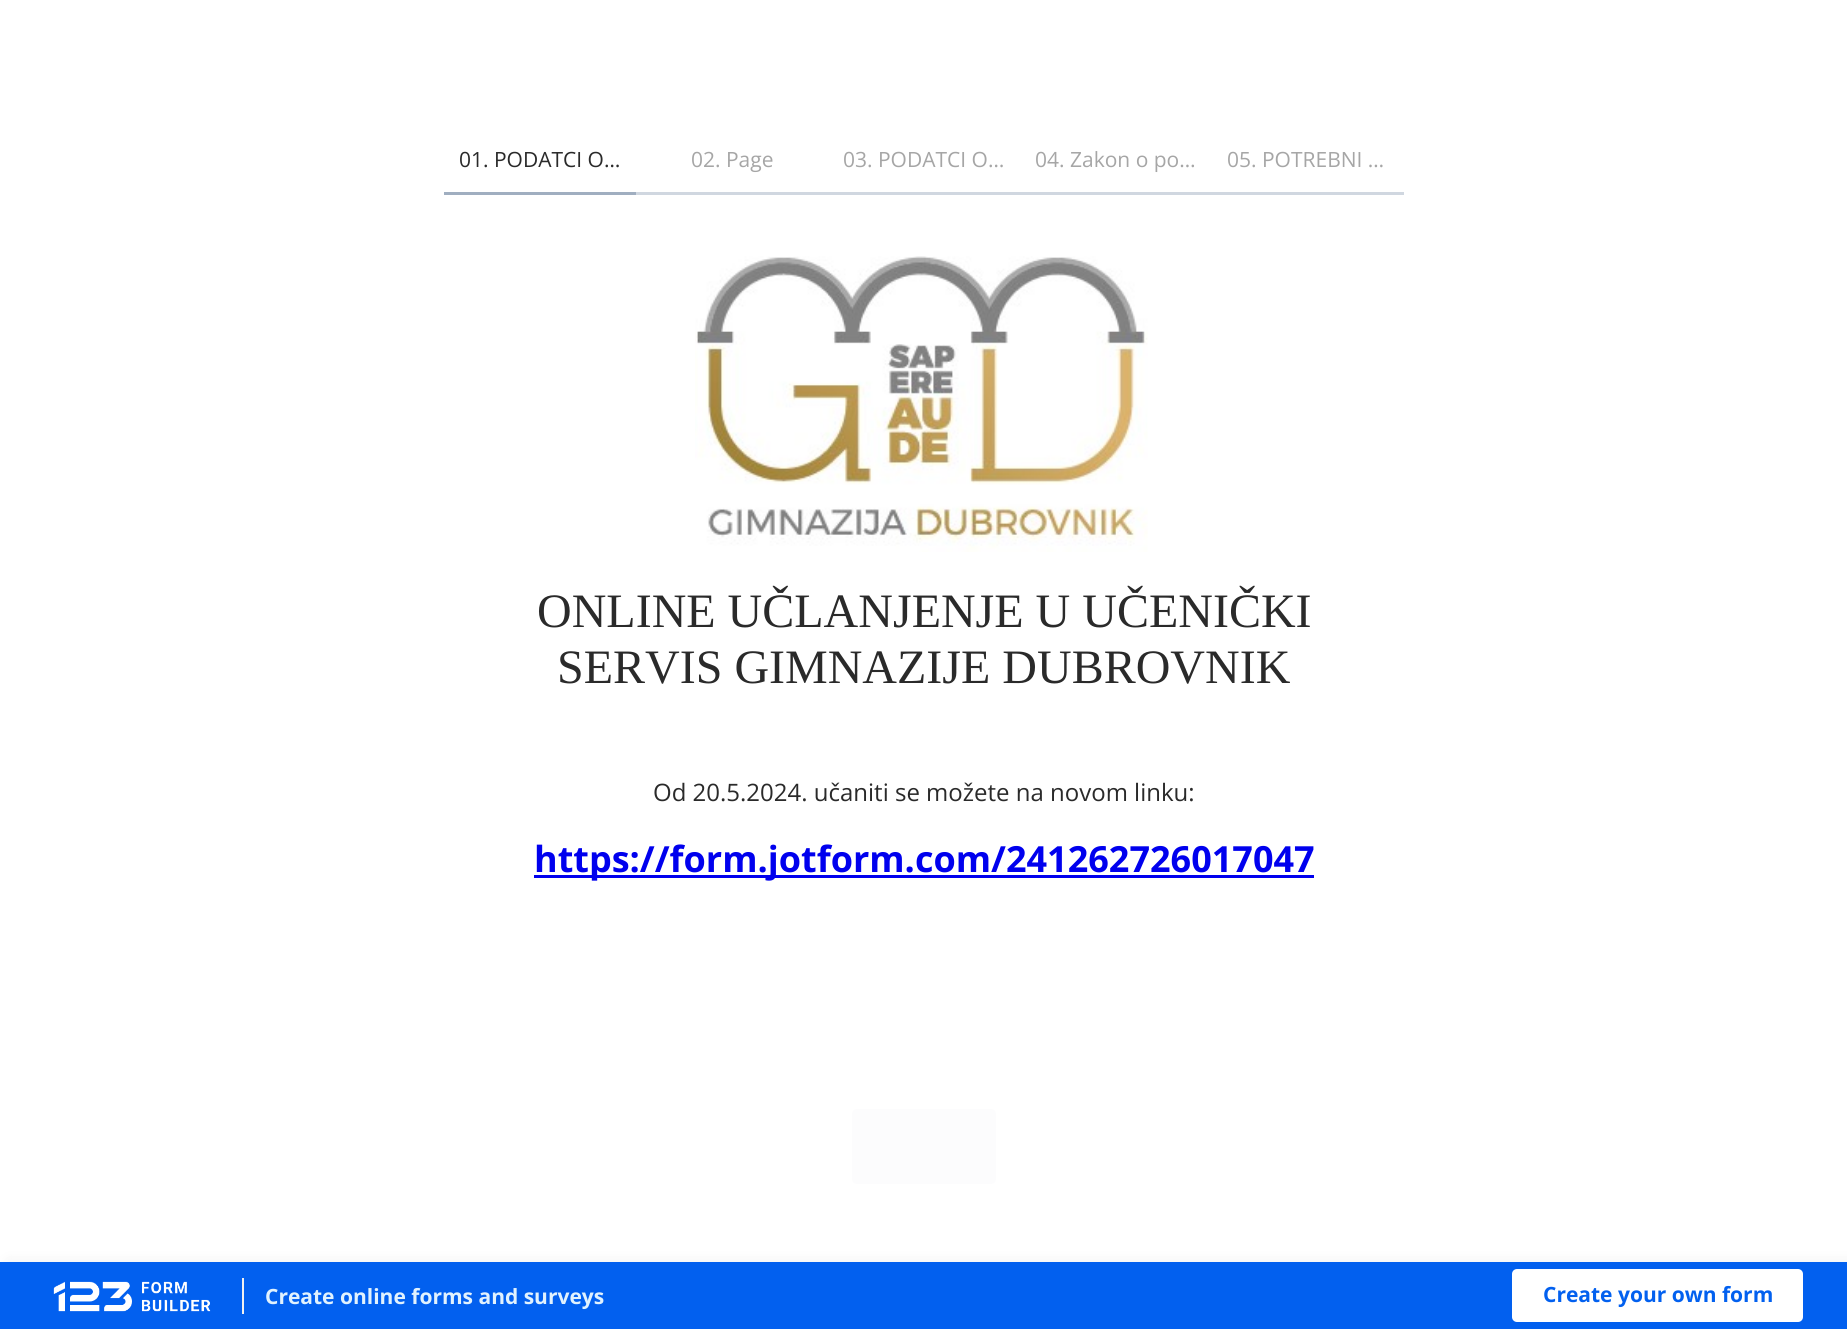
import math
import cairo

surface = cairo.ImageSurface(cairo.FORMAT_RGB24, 1847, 1329)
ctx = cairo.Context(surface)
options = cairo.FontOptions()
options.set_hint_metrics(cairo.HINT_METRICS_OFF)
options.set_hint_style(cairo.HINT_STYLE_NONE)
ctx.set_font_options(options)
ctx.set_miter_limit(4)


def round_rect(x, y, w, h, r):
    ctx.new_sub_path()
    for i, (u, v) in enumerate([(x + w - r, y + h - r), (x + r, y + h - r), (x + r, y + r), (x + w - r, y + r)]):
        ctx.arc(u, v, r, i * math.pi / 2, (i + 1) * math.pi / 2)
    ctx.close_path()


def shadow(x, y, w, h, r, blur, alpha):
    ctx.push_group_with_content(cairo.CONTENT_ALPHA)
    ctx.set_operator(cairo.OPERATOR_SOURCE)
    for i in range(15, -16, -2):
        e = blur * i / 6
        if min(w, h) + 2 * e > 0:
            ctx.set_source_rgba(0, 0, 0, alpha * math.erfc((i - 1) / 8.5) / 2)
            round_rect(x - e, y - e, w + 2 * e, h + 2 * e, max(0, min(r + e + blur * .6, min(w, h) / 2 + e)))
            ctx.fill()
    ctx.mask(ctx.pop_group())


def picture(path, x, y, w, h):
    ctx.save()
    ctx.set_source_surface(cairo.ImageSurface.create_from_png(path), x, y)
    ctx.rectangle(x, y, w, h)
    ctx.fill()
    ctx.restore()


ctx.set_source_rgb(1, 1, 1)
ctx.paint()
ctx.set_source_rgb(0.627, 0.682, 0.753)
ctx.rectangle(444, 192, 192, 3)
ctx.fill()
ctx.select_font_face("Open Sans")
ctx.set_font_size(21)
ctx.set_source_rgb(0.165, 0.165, 0.165)
ctx.move_to(459, 167)
ctx.show_text("01. PODATCI O…")
ctx.set_source_rgb(0.816, 0.843, 0.878)
ctx.rectangle(636, 192, 768, 3)
ctx.fill()
ctx.set_source_rgb(0.651, 0.651, 0.651)
ctx.move_to(691, 167)
ctx.show_text("02. Page")
ctx.move_to(843, 167)
ctx.show_text("03. PODATCI O…")
ctx.move_to(1035, 167)
ctx.show_text("04. Zakon o po…")
ctx.move_to(1227, 167)
ctx.show_text("05. POTREBNI …")
picture("img1.png", 695, 256, 453, 296)
ctx.select_font_face("Liberation Serif")
ctx.set_font_size(48)
ctx.set_source_rgb(0.165, 0.165, 0.165)
ctx.move_to(537, 627)
ctx.show_text("ONLINE UČLANJENJE U UČENIČKI")
ctx.move_to(557, 683)
ctx.show_text("SERVIS GIMNAZIJE DUBROVNIK")
ctx.select_font_face("Open Sans")
ctx.set_font_size(24)
ctx.move_to(653, 801)
ctx.show_text("Od 20.5.2024. učaniti se možete na novom linku:")
ctx.set_source_rgb(0, 0, 0.933)
ctx.rectangle(534, 875, 780, 3)
ctx.fill()
ctx.select_font_face("Open Sans", cairo.FONT_SLANT_NORMAL, cairo.FONT_WEIGHT_BOLD)
ctx.set_font_size(36)
ctx.move_to(534, 872)
ctx.show_text("https://form.jotform.com/241262726017047")
ctx.set_source_rgb(0.988, 0.988, 0.992)
round_rect(852, 1109, 144, 75, 5)
ctx.fill()
ctx.set_source_rgb(0.298, 0.298, 0.298)
shadow(8, 1262, 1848, 67, 0, 7.5, 0.08)
ctx.set_source_rgb(0.008, 0.376, 0.937)
ctx.rectangle(0, 1262, 1847, 67)
ctx.fill()
picture("img2.png", 53, 1281, 158, 31)
ctx.set_source_rgb(0.941, 0.941, 0.941)
ctx.rectangle(242, 1278, 2, 36)
ctx.fill()
ctx.set_font_size(21)
ctx.set_source_rgb(0.882, 0.949, 0.996)
ctx.move_to(265, 1304)
ctx.show_text("Create online forms and surveys")
ctx.set_source_rgb(1, 1, 1)
round_rect(1512, 1269, 291, 53, 5)
ctx.fill()
ctx.set_source_rgb(0.008, 0.376, 0.937)
ctx.move_to(1543, 1302)
ctx.show_text("Create your own form")
surface.write_to_png("page.png")
